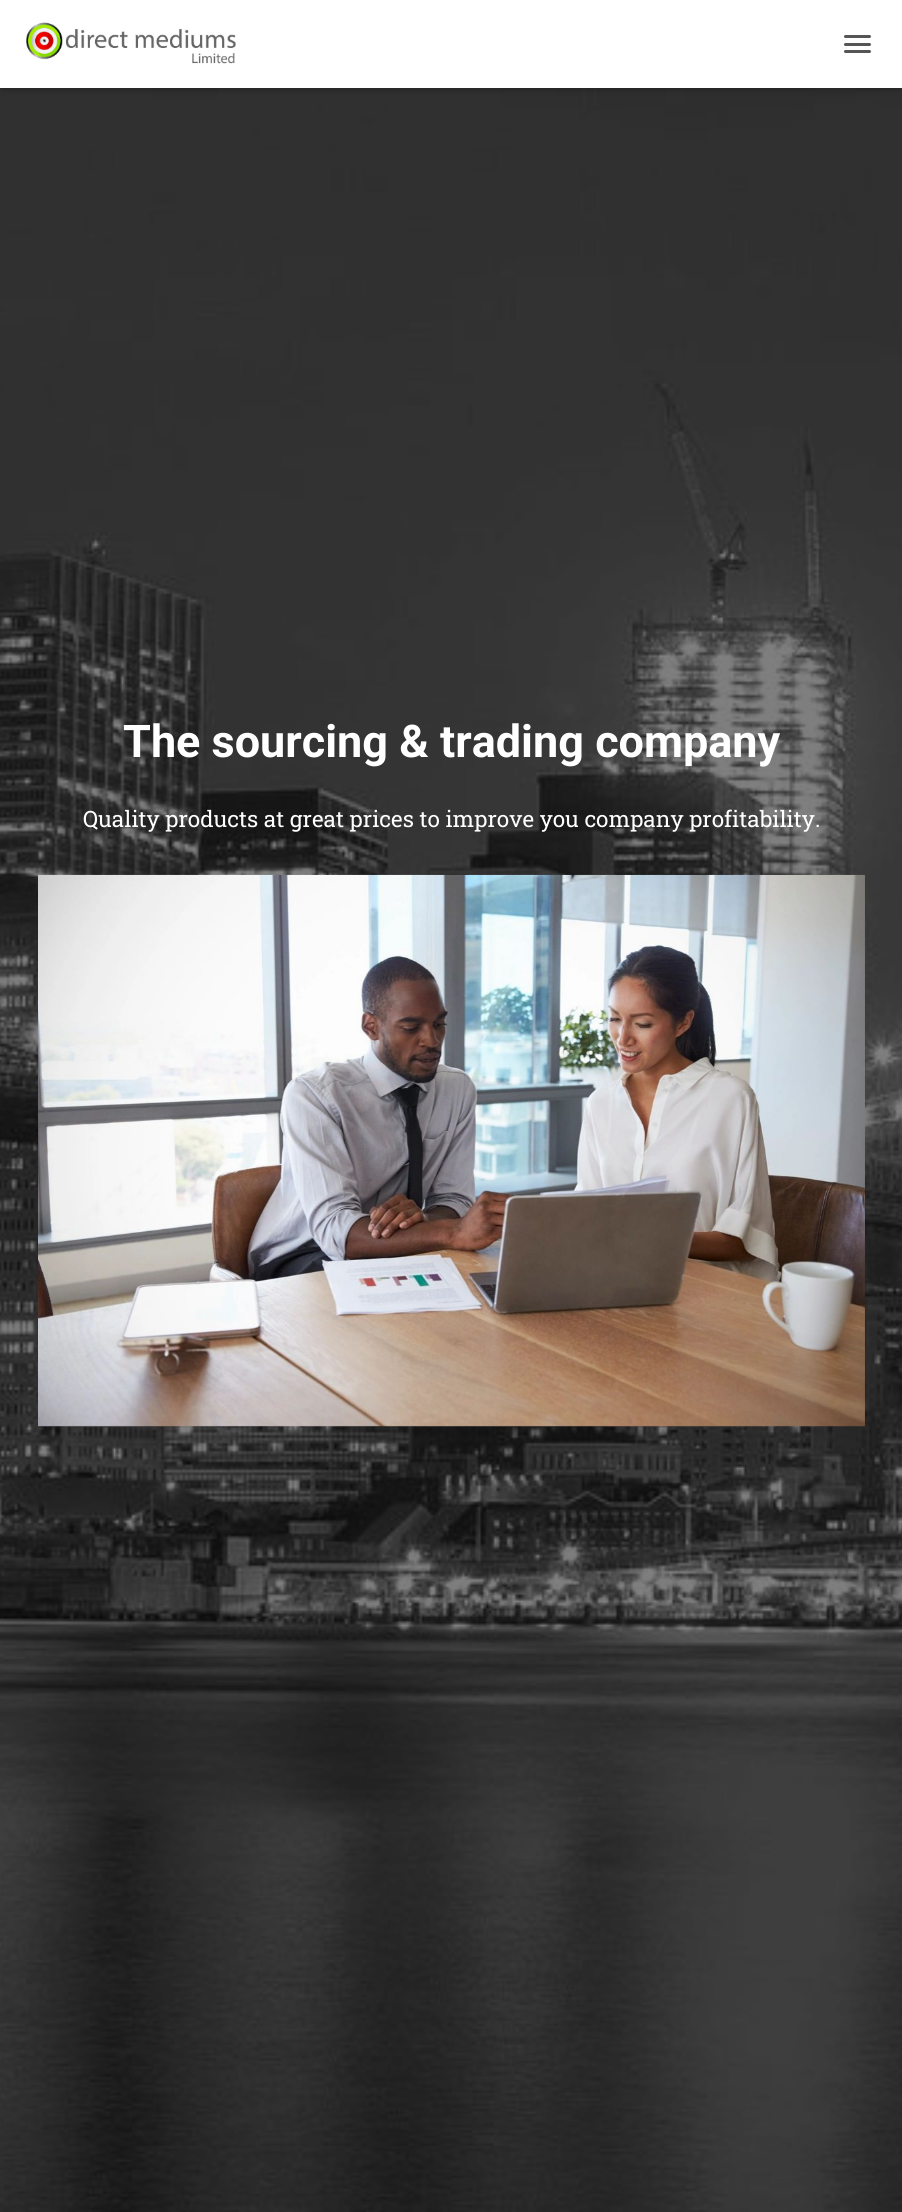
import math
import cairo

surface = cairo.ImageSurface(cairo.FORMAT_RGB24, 902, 2212)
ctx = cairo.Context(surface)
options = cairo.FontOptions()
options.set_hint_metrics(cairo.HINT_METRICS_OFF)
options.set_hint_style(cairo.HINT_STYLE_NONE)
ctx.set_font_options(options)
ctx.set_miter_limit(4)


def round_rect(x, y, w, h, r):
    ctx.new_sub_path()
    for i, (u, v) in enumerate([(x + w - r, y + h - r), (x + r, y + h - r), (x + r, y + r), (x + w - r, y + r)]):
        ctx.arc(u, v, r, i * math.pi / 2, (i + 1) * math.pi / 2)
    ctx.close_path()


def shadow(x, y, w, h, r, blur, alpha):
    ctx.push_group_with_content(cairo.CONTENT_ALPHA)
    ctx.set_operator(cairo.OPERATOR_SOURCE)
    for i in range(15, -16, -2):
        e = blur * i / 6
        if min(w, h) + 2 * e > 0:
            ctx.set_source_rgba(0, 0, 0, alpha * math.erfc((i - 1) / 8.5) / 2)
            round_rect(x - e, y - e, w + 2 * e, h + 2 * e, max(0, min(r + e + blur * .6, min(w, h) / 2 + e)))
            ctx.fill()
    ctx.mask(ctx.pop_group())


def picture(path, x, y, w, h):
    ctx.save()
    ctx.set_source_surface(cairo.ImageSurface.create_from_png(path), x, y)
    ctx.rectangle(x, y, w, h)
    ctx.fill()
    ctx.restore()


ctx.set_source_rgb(1, 1, 1)
ctx.paint()
picture("img2.png", 0, 88, 902, 2124)
ctx.set_source_rgb(0, 0, 0)
shadow(3, 8, 897, 82, 0, 3, 0.1)
shadow(0, 1, 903, 88, 0, 6, 0.12)
shadow(8, 9, 887, 72, 0, 6, 0.42)
ctx.set_source_rgb(1, 1, 1)
ctx.rectangle(0, 0, 902, 88)
ctx.fill()
picture("img1.png", 26, 22, 210, 42)
ctx.set_source_rgb(0.333, 0.333, 0.333)
round_rect(844, 35, 27, 3, 1.5)
ctx.fill()
round_rect(844, 43, 27, 3, 1.5)
ctx.fill()
round_rect(844, 50, 27, 3, 1.5)
ctx.fill()
ctx.select_font_face("Roboto", cairo.FONT_SLANT_NORMAL, cairo.FONT_WEIGHT_BOLD)
ctx.set_font_size(45)
ctx.set_source_rgb(1, 1, 1)
ctx.move_to(123, 757)
ctx.show_text("The sourcing & trading company")
ctx.select_font_face("Roboto Slab")
ctx.set_font_size(22.5)
ctx.move_to(83, 827)
ctx.show_text("Quality products at great prices to improve you company profitability.")
picture("img3.png", 38, 874, 827, 553)
surface.write_to_png("page.png")
